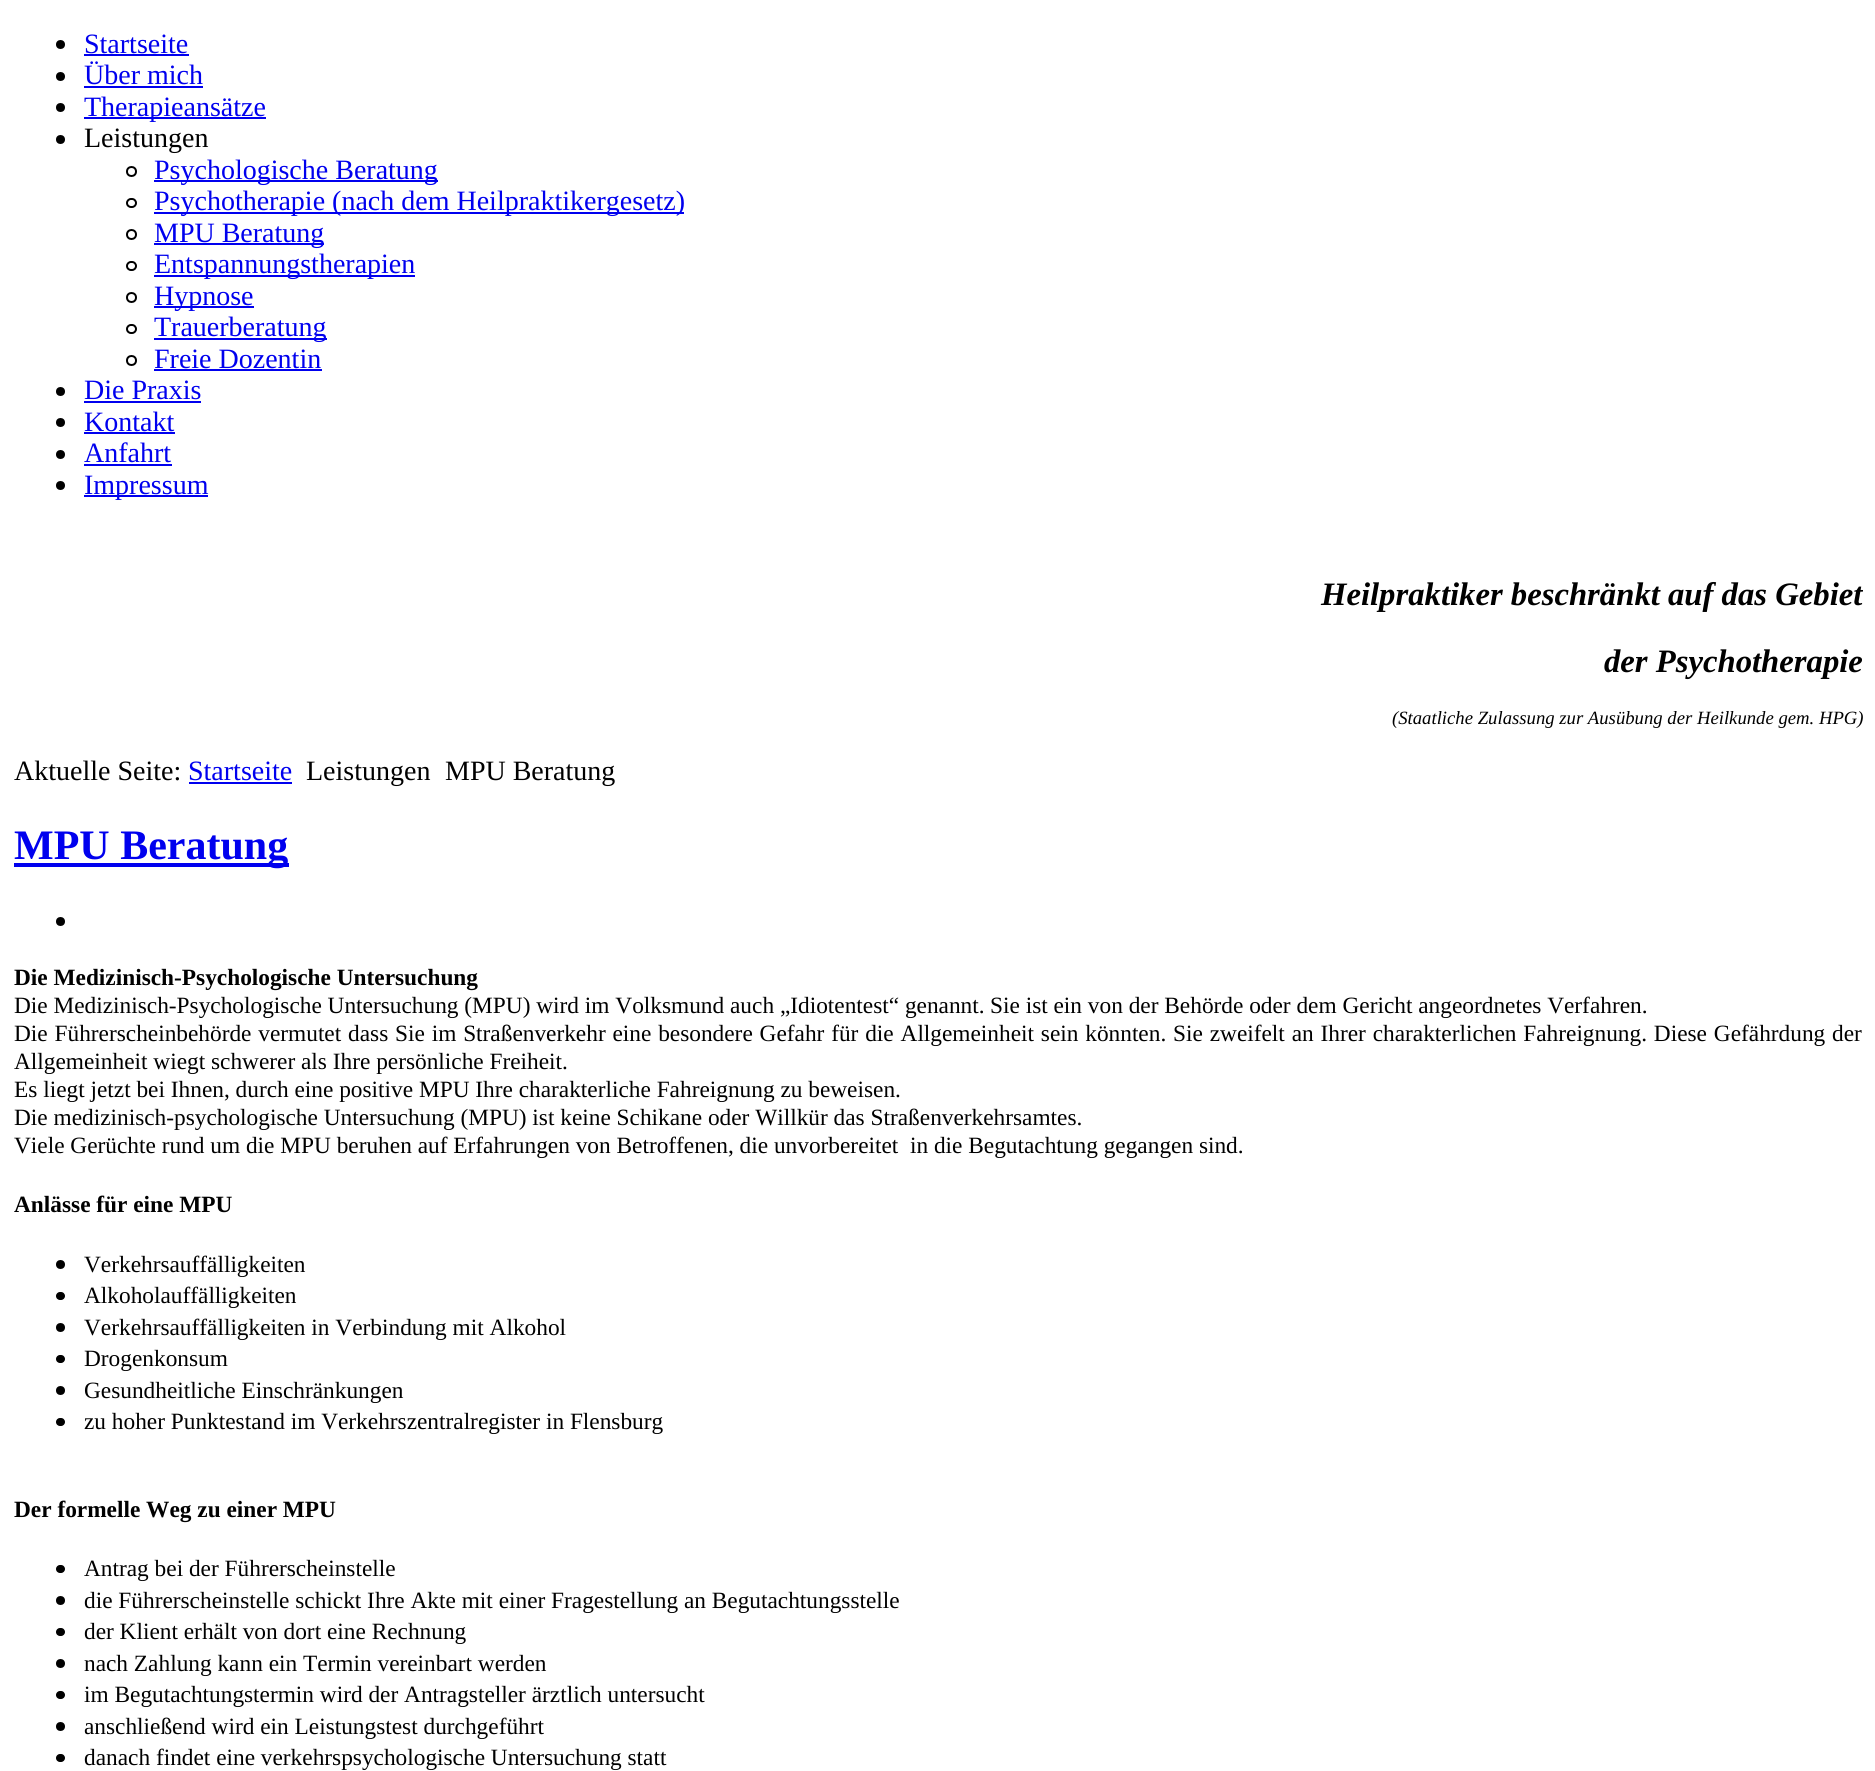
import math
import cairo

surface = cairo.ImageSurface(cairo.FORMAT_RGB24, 1875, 1771)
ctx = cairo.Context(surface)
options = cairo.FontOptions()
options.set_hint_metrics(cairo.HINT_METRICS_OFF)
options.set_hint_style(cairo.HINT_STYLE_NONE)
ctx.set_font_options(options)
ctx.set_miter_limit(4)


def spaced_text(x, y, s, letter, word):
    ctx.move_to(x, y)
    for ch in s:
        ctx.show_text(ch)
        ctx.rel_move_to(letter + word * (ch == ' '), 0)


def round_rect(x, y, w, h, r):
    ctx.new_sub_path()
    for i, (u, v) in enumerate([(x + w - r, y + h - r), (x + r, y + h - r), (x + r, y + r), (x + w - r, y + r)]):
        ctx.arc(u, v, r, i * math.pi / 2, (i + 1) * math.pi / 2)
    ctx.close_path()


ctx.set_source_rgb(1, 1, 1)
ctx.paint()
ctx.set_source_rgb(0, 0, 0)
ctx.arc(60.5, 44.5, 4.5, 0, 2 * math.pi)
ctx.fill()
ctx.select_font_face("Liberation Serif")
ctx.set_font_size(28)
ctx.set_source_rgb(0, 0, 0.933)
ctx.move_to(84, 53)
ctx.show_text("Startseite")
ctx.rectangle(84, 54, 105, 2)
ctx.fill()
ctx.set_source_rgb(0, 0, 0)
ctx.arc(60.5, 76.5, 4.5, 0, 2 * math.pi)
ctx.fill()
ctx.set_source_rgb(0, 0, 0.933)
ctx.move_to(84, 84)
ctx.show_text("Über mich")
ctx.rectangle(84, 86, 119, 2)
ctx.fill()
ctx.set_source_rgb(0, 0, 0)
ctx.arc(60.5, 107.5, 4.5, 0, 2 * math.pi)
ctx.fill()
ctx.set_source_rgb(0, 0, 0.933)
ctx.rectangle(84, 117, 182, 2)
ctx.fill()
ctx.move_to(84, 116)
ctx.show_text("Therapieansätze")
ctx.set_source_rgb(0, 0, 0)
ctx.new_path()
ctx.arc(60.5, 139.5, 4.5, 0, 2 * math.pi)
ctx.fill()
ctx.move_to(84, 147)
ctx.show_text("Leistungen")
ctx.new_path()
ctx.arc(131.5, 171.5, 4.5, 0, 2 * math.pi)
ctx.stroke()
ctx.set_source_rgb(0, 0, 0.933)
ctx.rectangle(154, 180, 284, 2)
ctx.fill()
ctx.move_to(154, 179)
ctx.show_text("Psychologische Beratung")
round_rect(127, 199, 9, 8, 4)
ctx.set_source_rgb(0, 0, 0)
ctx.stroke()
ctx.set_source_rgb(0, 0, 0.933)
ctx.rectangle(154, 212, 530, 2)
ctx.fill()
ctx.move_to(154, 210)
ctx.show_text("Psychotherapie (nach dem Heilpraktikergesetz)")
ctx.new_path()
ctx.arc(131.5, 234.5, 4.5, 0, 2 * math.pi)
ctx.set_source_rgb(0, 0, 0)
ctx.stroke()
ctx.set_source_rgb(0, 0, 0.933)
ctx.rectangle(154, 243, 170, 2)
ctx.fill()
ctx.move_to(154, 242)
ctx.show_text("MPU Beratung")
round_rect(127, 262, 9, 8, 4)
ctx.set_source_rgb(0, 0, 0)
ctx.stroke()
ctx.set_source_rgb(0, 0, 0.933)
ctx.rectangle(154, 275, 261, 2)
ctx.fill()
ctx.move_to(154, 273)
ctx.show_text("Entspannungstherapien")
ctx.new_path()
ctx.arc(131.5, 297.5, 4.5, 0, 2 * math.pi)
ctx.set_source_rgb(0, 0, 0)
ctx.stroke()
ctx.set_source_rgb(0, 0, 0.933)
ctx.rectangle(154, 306, 100, 2)
ctx.fill()
ctx.move_to(154, 305)
ctx.show_text("Hypnose")
round_rect(127, 325, 9, 8, 4)
ctx.set_source_rgb(0, 0, 0)
ctx.stroke()
ctx.set_source_rgb(0, 0, 0.933)
ctx.rectangle(154, 338, 173, 2)
ctx.fill()
ctx.move_to(154, 336)
ctx.show_text("Trauerberatung")
ctx.new_path()
ctx.arc(131.5, 360.5, 4.5, 0, 2 * math.pi)
ctx.set_source_rgb(0, 0, 0)
ctx.stroke()
ctx.set_source_rgb(0, 0, 0.933)
ctx.move_to(154, 368)
ctx.show_text("Freie Dozentin")
ctx.rectangle(154, 369, 168, 2)
ctx.fill()
ctx.set_source_rgb(0, 0, 0)
ctx.arc(60.5, 391.5, 4.5, 0, 2 * math.pi)
ctx.fill()
ctx.set_source_rgb(0, 0, 0.933)
ctx.move_to(84, 399)
ctx.show_text("Die Praxis")
ctx.rectangle(84, 401, 117, 2)
ctx.fill()
ctx.set_source_rgb(0, 0, 0)
ctx.arc(60.5, 422.5, 4.5, 0, 2 * math.pi)
ctx.fill()
ctx.set_source_rgb(0, 0, 0.933)
ctx.move_to(84, 431)
ctx.show_text("Kontakt")
ctx.rectangle(84, 432, 91, 2)
ctx.fill()
ctx.set_source_rgb(0, 0, 0)
ctx.arc(60.5, 454.5, 4.5, 0, 2 * math.pi)
ctx.fill()
ctx.set_source_rgb(0, 0, 0.933)
ctx.move_to(84, 462)
ctx.show_text("Anfahrt")
ctx.rectangle(84, 464, 88, 2)
ctx.fill()
ctx.set_source_rgb(0, 0, 0)
ctx.arc(60.5, 485.5, 4.5, 0, 2 * math.pi)
ctx.fill()
ctx.set_source_rgb(0, 0, 0.933)
ctx.rectangle(84, 495, 124, 2)
ctx.fill()
ctx.move_to(84, 494)
ctx.show_text("Impressum")
ctx.select_font_face("Liberation Serif", cairo.FONT_SLANT_ITALIC, cairo.FONT_WEIGHT_BOLD)
ctx.set_font_size(32.7)
ctx.set_source_rgb(0, 0, 0)
ctx.move_to(1321, 605)
ctx.show_text("Heilpraktiker beschränkt auf das Gebiet")
ctx.move_to(1604, 672)
ctx.show_text("der Psychotherapie")
ctx.select_font_face("Liberation Serif", cairo.FONT_SLANT_ITALIC)
ctx.set_font_size(18.7)
ctx.move_to(1392, 724)
ctx.show_text("(Staatliche Zulassung zur Ausübung der Heilkunde gem. HPG)")
ctx.select_font_face("Liberation Serif")
ctx.set_font_size(28)
ctx.move_to(14, 780)
ctx.show_text("Aktuelle Seite:")
ctx.set_source_rgb(0, 0, 0.933)
ctx.move_to(188, 780)
ctx.show_text("Startseite")
ctx.rectangle(189, 782, 103, 2)
ctx.fill()
ctx.set_source_rgb(0, 0, 0)
ctx.move_to(306, 780)
ctx.show_text("Leistungen")
ctx.move_to(445, 780)
ctx.show_text("MPU Beratung")
ctx.set_source_rgb(0, 0, 0.933)
ctx.rectangle(14, 863, 275, 4)
ctx.fill()
ctx.select_font_face("Liberation Serif", cairo.FONT_SLANT_NORMAL, cairo.FONT_WEIGHT_BOLD)
ctx.set_font_size(42)
ctx.move_to(14, 859)
ctx.show_text("MPU Beratung")
ctx.set_source_rgb(0, 0, 0)
ctx.new_path()
ctx.arc(60.5, 921.5, 4.5, 0, 2 * math.pi)
ctx.fill()
ctx.set_font_size(23.33)
ctx.move_to(14, 985)
ctx.show_text("Die Medizinisch-Psychologische Untersuchung")
ctx.select_font_face("Liberation Serif")
ctx.move_to(14, 1013)
ctx.show_text("Die Medizinisch-Psychologische Untersuchung (MPU) wird im Volksmund auch „Idiotentest“ genannt.")
ctx.move_to(990, 1013)
ctx.show_text("Sie ist ein von der Behörde oder dem Gericht angeordnetes Verfahren.")
spaced_text(14, 1041, "Die Führerscheinbehörde vermutet dass Sie im Straßenverkehr eine besondere Gefahr für die Allgemeinheit sein könnten. Sie zweifelt an Ihrer charakterlichen Fahreignung. Diese Gefährdung der", 0, 1)
ctx.move_to(14, 1069)
ctx.show_text("Allgemeinheit wiegt schwerer als Ihre persönliche Freiheit.")
ctx.move_to(14, 1097)
ctx.show_text("Es liegt jetzt bei Ihnen, durch eine positive MPU Ihre charakterliche Fahreignung zu beweisen.")
ctx.move_to(14, 1125)
ctx.show_text("Die medizinisch-psychologische Untersuchung (MPU) ist keine Schikane oder Willkür das Straßenverkehrsamtes.")
ctx.move_to(14, 1153)
ctx.show_text("Viele Gerüchte rund um die MPU beruhen auf Erfahrungen von Betroffenen, die unvorbereitet  in die Begutachtung gegangen sind.")
ctx.select_font_face("Liberation Serif", cairo.FONT_SLANT_NORMAL, cairo.FONT_WEIGHT_BOLD)
ctx.move_to(14, 1212)
ctx.show_text("Anlässe für eine MPU")
ctx.new_path()
ctx.arc(60.5, 1264.5, 4.5, 0, 2 * math.pi)
ctx.fill()
ctx.select_font_face("Liberation Serif")
ctx.move_to(84, 1272)
ctx.show_text("Verkehrsauffälligkeiten")
round_rect(56, 1292, 9, 8, 4)
ctx.fill()
ctx.move_to(84, 1303)
ctx.show_text("Alkoholauffälligkeiten")
ctx.new_path()
ctx.arc(60.5, 1327.5, 4.5, 0, 2 * math.pi)
ctx.fill()
ctx.move_to(84, 1335)
ctx.show_text("Verkehrsauffälligkeiten in Verbindung mit Alkohol")
round_rect(56, 1355, 9, 8, 4)
ctx.fill()
ctx.move_to(84, 1366)
ctx.show_text("Drogenkonsum")
ctx.new_path()
ctx.arc(60.5, 1390.5, 4.5, 0, 2 * math.pi)
ctx.fill()
ctx.move_to(84, 1398)
ctx.show_text("Gesundheitliche Einschränkungen")
round_rect(56, 1418, 9, 8, 4)
ctx.fill()
ctx.move_to(84, 1429)
ctx.show_text("zu hoher Punktestand im Verkehrszentralregister in Flensburg")
ctx.select_font_face("Liberation Serif", cairo.FONT_SLANT_NORMAL, cairo.FONT_WEIGHT_BOLD)
ctx.move_to(14, 1517)
ctx.show_text("Der formelle Weg zu einer MPU")
round_rect(56, 1565, 9, 8, 4)
ctx.fill()
ctx.select_font_face("Liberation Serif")
ctx.move_to(84, 1576)
ctx.show_text("Antrag bei der Führerscheinstelle")
ctx.new_path()
ctx.arc(60.5, 1600.5, 4.5, 0, 2 * math.pi)
ctx.fill()
ctx.move_to(84, 1608)
ctx.show_text("die Führerscheinstelle schickt Ihre Akte mit einer Fragestellung an Begutachtungsstelle")
round_rect(56, 1628, 9, 8, 4)
ctx.fill()
ctx.move_to(84, 1639)
ctx.show_text("der Klient erhält von dort eine Rechnung")
ctx.new_path()
ctx.arc(60.5, 1663.5, 4.5, 0, 2 * math.pi)
ctx.fill()
ctx.move_to(84, 1671)
ctx.show_text("nach Zahlung kann ein Termin vereinbart werden")
round_rect(56, 1691, 9, 8, 4)
ctx.fill()
ctx.move_to(84, 1702)
ctx.show_text("im Begutachtungstermin wird der Antragsteller ärztlich untersucht")
ctx.new_path()
ctx.arc(60.5, 1726.5, 4.5, 0, 2 * math.pi)
ctx.fill()
ctx.move_to(84, 1734)
ctx.show_text("anschließend wird ein Leistungstest durchgeführt")
round_rect(56, 1754, 9, 8, 4)
ctx.fill()
ctx.move_to(84, 1765)
ctx.show_text("danach findet eine verkehrspsychologische Untersuchung statt")
surface.write_to_png("page.png")
